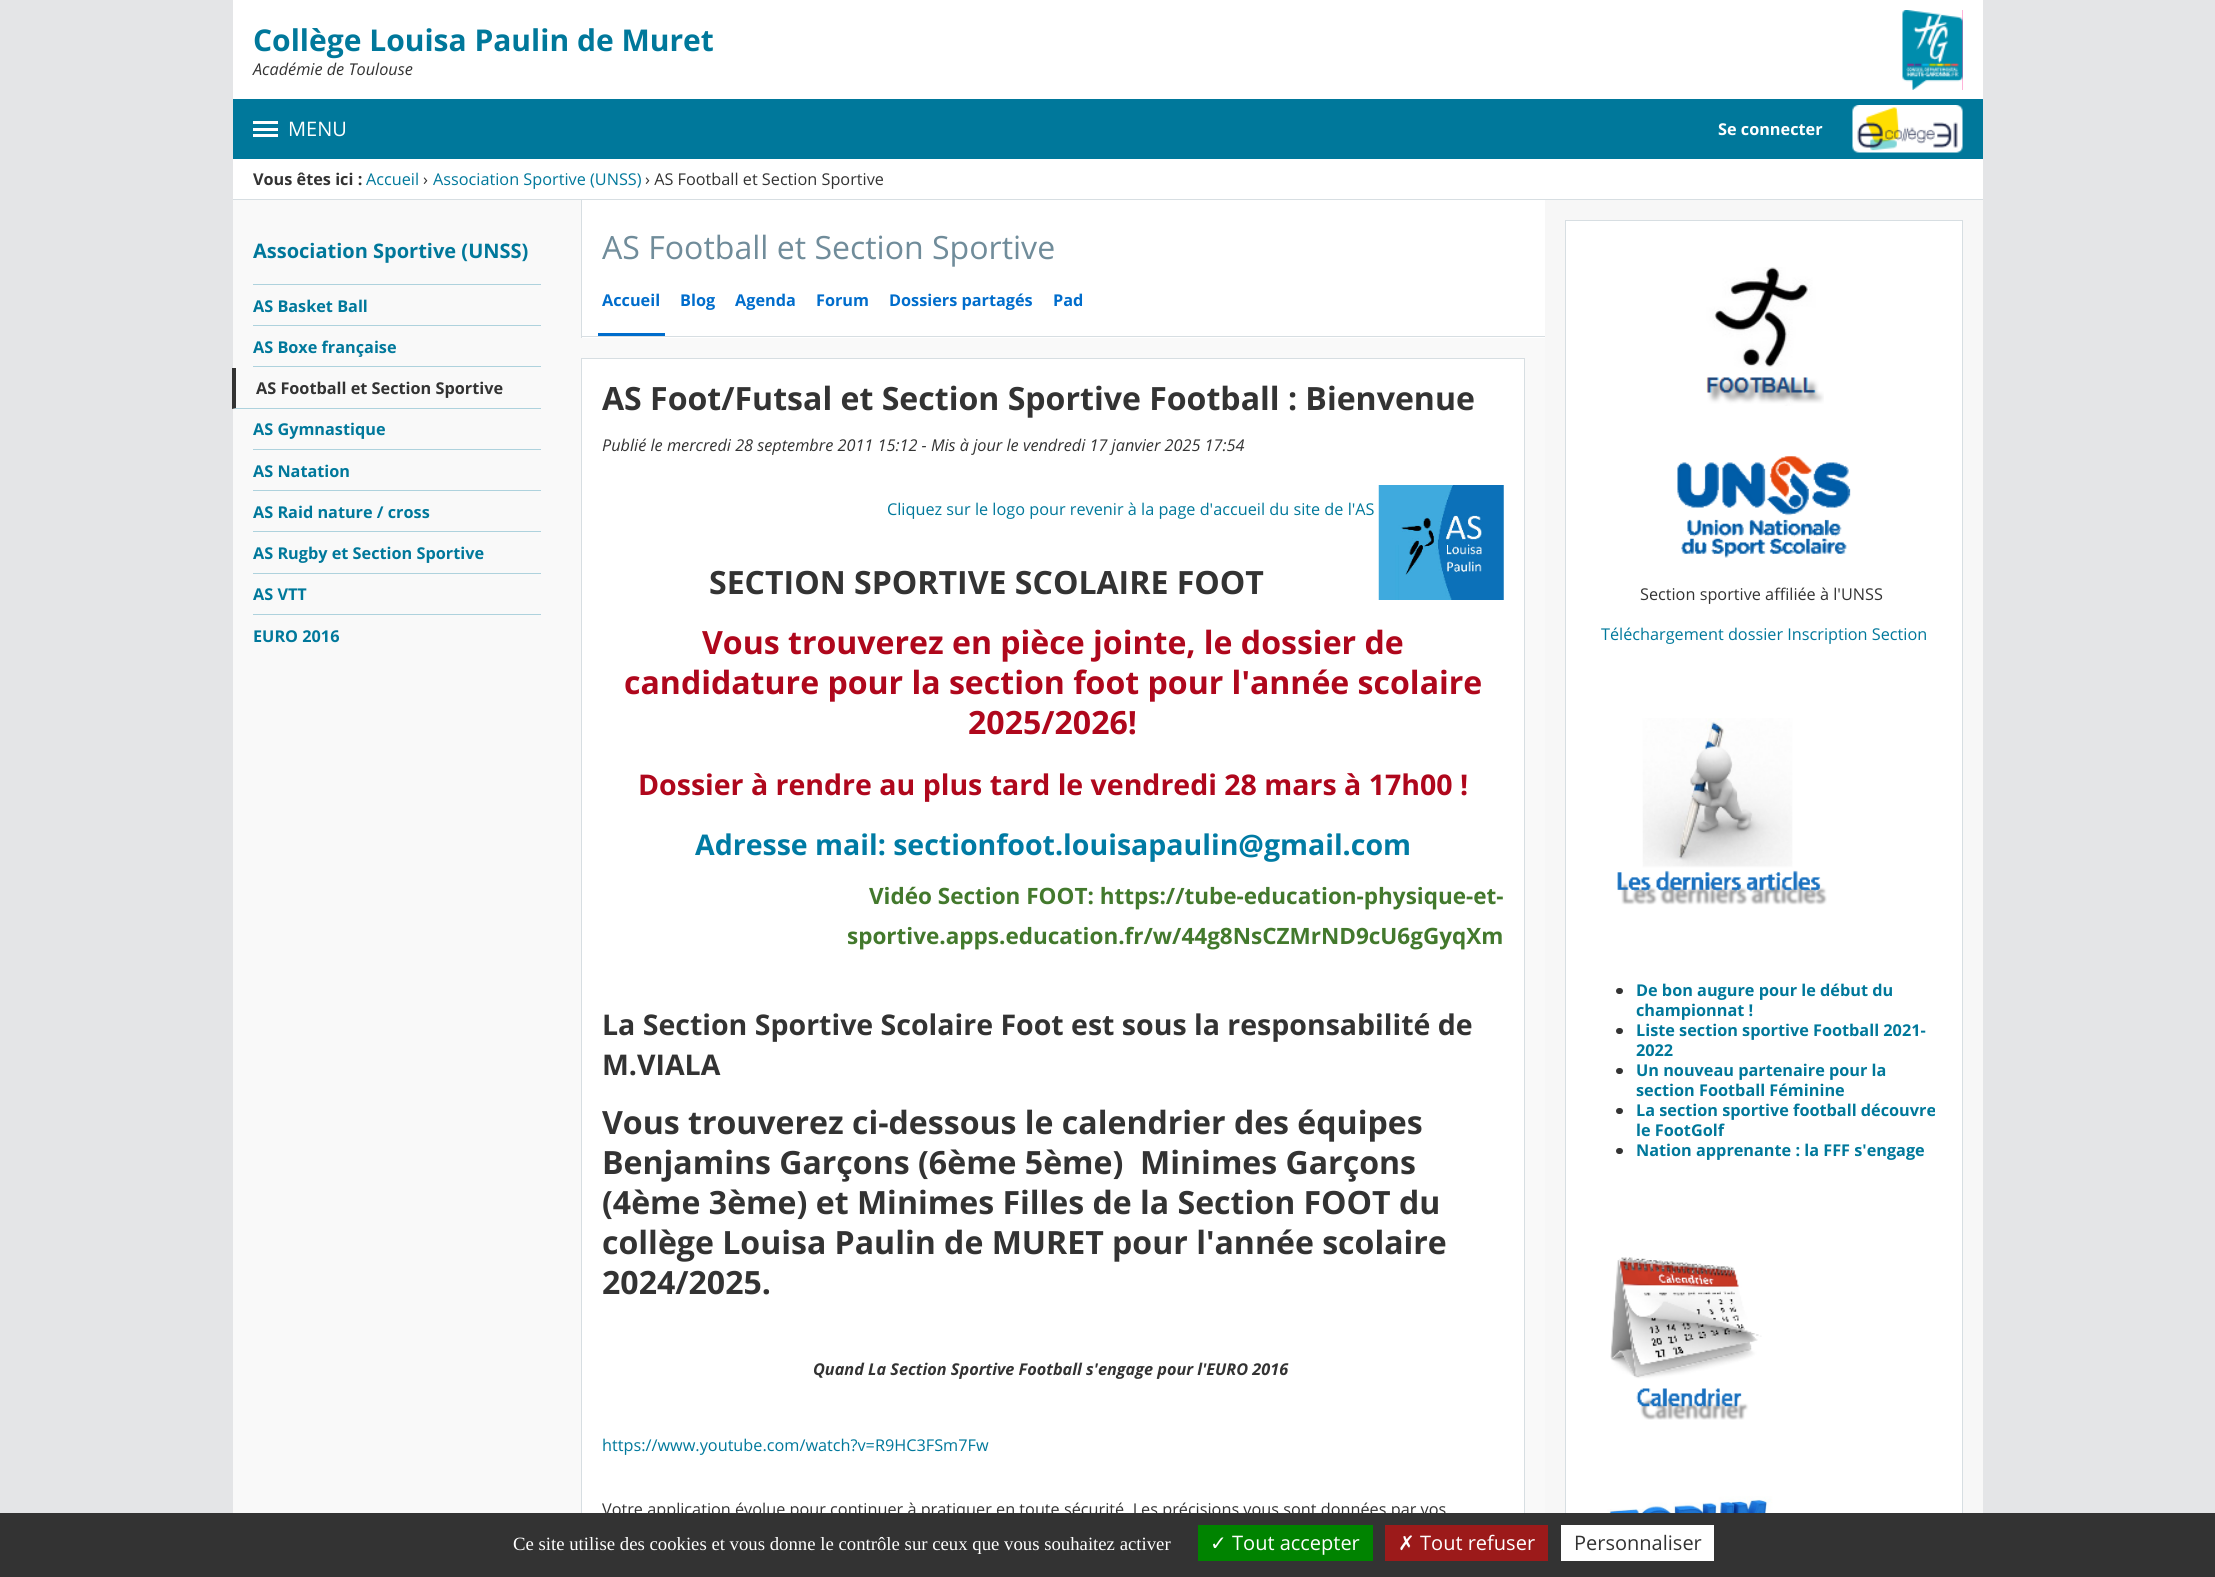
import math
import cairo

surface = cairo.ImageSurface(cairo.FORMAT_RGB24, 2215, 1577)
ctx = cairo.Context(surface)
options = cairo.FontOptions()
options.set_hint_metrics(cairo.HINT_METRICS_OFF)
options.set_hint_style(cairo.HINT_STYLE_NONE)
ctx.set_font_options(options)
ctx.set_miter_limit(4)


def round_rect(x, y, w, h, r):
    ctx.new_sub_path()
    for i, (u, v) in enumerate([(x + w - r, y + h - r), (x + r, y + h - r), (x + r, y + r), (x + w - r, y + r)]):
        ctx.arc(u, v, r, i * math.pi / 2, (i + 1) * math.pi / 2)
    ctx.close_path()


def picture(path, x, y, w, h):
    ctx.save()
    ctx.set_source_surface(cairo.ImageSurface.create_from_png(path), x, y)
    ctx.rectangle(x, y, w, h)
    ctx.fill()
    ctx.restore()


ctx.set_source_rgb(0.894, 0.898, 0.906)
ctx.paint()
ctx.set_source_rgb(1, 1, 1)
ctx.rectangle(233, 0, 1750, 199)
ctx.fill()
ctx.select_font_face("Open Sans", cairo.FONT_SLANT_NORMAL, cairo.FONT_WEIGHT_BOLD)
ctx.set_font_size(30)
ctx.set_source_rgb(0, 0.471, 0.608)
ctx.move_to(253, 51)
ctx.show_text("Collège Louisa Paulin de Muret")
ctx.select_font_face("Open Sans", cairo.FONT_SLANT_ITALIC)
ctx.set_font_size(16.25)
ctx.set_source_rgb(0.2, 0.2, 0.2)
ctx.move_to(253, 75)
ctx.show_text("Académie de Toulouse")
ctx.set_source_rgb(1, 0.412, 0.706)
ctx.rectangle(1962, 10, 1, 80)
ctx.fill()
picture("img1.png", 1902, 10, 61, 80)
ctx.set_source_rgb(0, 0.471, 0.608)
ctx.rectangle(233, 99, 1750, 60)
ctx.fill()
ctx.set_source_rgb(1, 1, 1)
ctx.rectangle(253, 121, 25, 3)
ctx.fill()
ctx.rectangle(253, 128, 25, 3)
ctx.fill()
ctx.rectangle(253, 134, 25, 3)
ctx.fill()
ctx.select_font_face("Open Sans")
ctx.set_font_size(20)
ctx.move_to(288, 136)
ctx.show_text("MENU")
ctx.select_font_face("Open Sans", cairo.FONT_SLANT_NORMAL, cairo.FONT_WEIGHT_BOLD)
ctx.set_font_size(16.25)
ctx.move_to(1718, 135)
ctx.show_text("Se connecter")
picture("img2.png", 1852, 105, 111, 48)
ctx.set_source_rgb(0.843, 0.871, 0.886)
ctx.rectangle(233, 199, 1750, 1)
ctx.fill()
ctx.set_source_rgb(0.2, 0.2, 0.2)
ctx.move_to(253, 185)
ctx.show_text("Vous êtes ici :")
ctx.select_font_face("Open Sans")
ctx.set_source_rgb(0, 0.471, 0.608)
ctx.move_to(366, 185)
ctx.show_text("Accueil")
ctx.set_source_rgb(0.2, 0.2, 0.2)
ctx.move_to(423, 185)
ctx.show_text("›")
ctx.set_source_rgb(0, 0.471, 0.608)
ctx.move_to(433, 185)
ctx.show_text("Association Sportive (UNSS)")
ctx.set_source_rgb(0.2, 0.2, 0.2)
ctx.move_to(645, 185)
ctx.show_text("› AS Football et Section Sportive")
ctx.set_source_rgb(0.976, 0.976, 0.976)
ctx.rectangle(233, 200, 1312, 1313)
ctx.fill()
ctx.select_font_face("Open Sans", cairo.FONT_SLANT_NORMAL, cairo.FONT_WEIGHT_BOLD)
ctx.set_font_size(20)
ctx.set_source_rgb(0, 0.471, 0.608)
ctx.move_to(253, 258)
ctx.show_text("Association Sportive (UNSS)")
ctx.set_source_rgb(0.682, 0.824, 0.867)
ctx.rectangle(253, 284, 288, 1)
ctx.fill()
ctx.rectangle(253, 325, 288, 1)
ctx.fill()
ctx.set_font_size(16.25)
ctx.set_source_rgb(0, 0.471, 0.608)
ctx.move_to(253, 312)
ctx.show_text("AS Basket Ball")
ctx.set_source_rgb(0.682, 0.824, 0.867)
ctx.rectangle(253, 366, 288, 1)
ctx.fill()
ctx.set_source_rgb(0, 0.471, 0.608)
ctx.move_to(253, 353)
ctx.show_text("AS Boxe française")
ctx.set_source_rgb(0.682, 0.824, 0.867)
ctx.new_path()
ctx.move_to(541, 409)
ctx.line_to(232, 409)
ctx.line_to(236, 408)
ctx.line_to(541, 408)
ctx.close_path()
ctx.fill()
ctx.set_source_rgb(0.2, 0.2, 0.2)
ctx.new_path()
ctx.move_to(232, 409)
ctx.line_to(232, 368)
ctx.line_to(236, 368)
ctx.line_to(236, 408)
ctx.close_path()
ctx.fill()
ctx.move_to(256, 394)
ctx.show_text("AS Football et Section Sportive")
ctx.set_source_rgb(0.682, 0.824, 0.867)
ctx.rectangle(253, 449, 288, 1)
ctx.fill()
ctx.set_source_rgb(0, 0.471, 0.608)
ctx.move_to(253, 435)
ctx.show_text("AS Gymnastique")
ctx.set_source_rgb(0.682, 0.824, 0.867)
ctx.rectangle(253, 490, 288, 1)
ctx.fill()
ctx.set_source_rgb(0, 0.471, 0.608)
ctx.move_to(253, 477)
ctx.show_text("AS Natation")
ctx.set_source_rgb(0.682, 0.824, 0.867)
ctx.rectangle(253, 531, 288, 1)
ctx.fill()
ctx.set_source_rgb(0, 0.471, 0.608)
ctx.move_to(253, 518)
ctx.show_text("AS Raid nature / cross")
ctx.set_source_rgb(0.682, 0.824, 0.867)
ctx.rectangle(253, 573, 288, 1)
ctx.fill()
ctx.set_source_rgb(0, 0.471, 0.608)
ctx.move_to(253, 559)
ctx.show_text("AS Rugby et Section Sportive")
ctx.set_source_rgb(0.682, 0.824, 0.867)
ctx.rectangle(253, 614, 288, 1)
ctx.fill()
ctx.set_source_rgb(0, 0.471, 0.608)
ctx.move_to(253, 600)
ctx.show_text("AS VTT")
ctx.move_to(253, 642)
ctx.show_text("EURO 2016")
ctx.set_source_rgb(1, 1, 1)
ctx.rectangle(582, 200, 963, 138)
ctx.fill()
ctx.set_source_rgb(0.843, 0.871, 0.886)
ctx.rectangle(581, 336, 964, 1)
ctx.fill()
ctx.rectangle(581, 200, 1, 138)
ctx.fill()
ctx.select_font_face("Open Sans")
ctx.set_font_size(32.05)
ctx.set_source_rgb(0.439, 0.549, 0.604)
ctx.move_to(602, 259)
ctx.show_text("AS Football et Section Sportive")
ctx.set_source_rgb(0, 0.427, 0.8)
ctx.rectangle(598, 333, 67, 3)
ctx.fill()
ctx.select_font_face("Open Sans", cairo.FONT_SLANT_NORMAL, cairo.FONT_WEIGHT_BOLD)
ctx.set_font_size(16.25)
ctx.move_to(602, 306)
ctx.show_text("Accueil")
ctx.move_to(680, 306)
ctx.show_text("Blog")
ctx.move_to(735, 306)
ctx.show_text("Agenda")
ctx.move_to(816, 306)
ctx.show_text("Forum")
ctx.move_to(889, 306)
ctx.show_text("Dossiers partagés")
ctx.move_to(1053, 306)
ctx.show_text("Pad")
ctx.set_source_rgb(1, 1, 1)
ctx.rectangle(582, 359, 942, 1154)
ctx.fill()
ctx.rectangle(581.5, 358.5, 943, 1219)
ctx.set_source_rgb(0.843, 0.871, 0.886)
ctx.set_line_width(1)
ctx.stroke()
ctx.set_font_size(32.05)
ctx.set_source_rgb(0.2, 0.2, 0.2)
ctx.move_to(602, 410)
ctx.show_text("AS Foot/Futsal et Section Sportive Football : Bienvenue")
ctx.select_font_face("Open Sans", cairo.FONT_SLANT_ITALIC)
ctx.set_font_size(16.25)
ctx.move_to(602, 451)
ctx.show_text("Publié le mercredi 28 septembre 2011 15:12 - Mis à jour le vendredi 17 janvier 2025 17:54")
ctx.select_font_face("Open Sans")
ctx.set_source_rgb(0, 0.471, 0.608)
ctx.move_to(887, 515)
ctx.show_text("Cliquez sur le logo pour revenir à la page d'accueil du site de l'AS")
picture("img3.png", 1378, 485, 126, 115)
ctx.select_font_face("Open Sans", cairo.FONT_SLANT_NORMAL, cairo.FONT_WEIGHT_BOLD)
ctx.set_font_size(32.05)
ctx.set_source_rgb(0.2, 0.2, 0.2)
ctx.move_to(709, 594)
ctx.show_text("SECTION SPORTIVE SCOLAIRE FOOT")
ctx.set_source_rgb(0.686, 0.031, 0.11)
ctx.move_to(702, 654)
ctx.show_text("Vous trouverez en pièce jointe, le dossier de")
ctx.move_to(624, 694)
ctx.show_text("candidature pour la section foot pour l'année scolaire")
ctx.move_to(968, 734)
ctx.show_text("2025/2026!")
ctx.set_font_size(28.5)
ctx.move_to(638, 795)
ctx.show_text("Dossier à rendre au plus tard le vendredi 28 mars à 17h00 !")
ctx.set_source_rgb(0, 0.482, 0.643)
ctx.move_to(695, 855)
ctx.show_text("Adresse mail: sectionfoot.louisapaulin@gmail.com")
ctx.set_font_size(22.5)
ctx.set_source_rgb(0.263, 0.475, 0.176)
ctx.move_to(869, 904)
ctx.show_text("Vidéo Section FOOT: https://tube-education-physique-et-")
ctx.move_to(847, 944)
ctx.show_text("sportive.apps.education.fr/w/44g8NsCZMrND9cU6gGyqXm")
ctx.set_font_size(28.5)
ctx.set_source_rgb(0.2, 0.2, 0.2)
ctx.move_to(602, 1035)
ctx.show_text("La Section Sportive Scolaire Foot est sous la responsabilité de")
ctx.move_to(602, 1075)
ctx.show_text("M.VIALA")
ctx.set_font_size(32.05)
ctx.move_to(602, 1134)
ctx.show_text("Vous trouverez ci-dessous le calendrier des équipes")
ctx.move_to(602, 1174)
ctx.show_text("Benjamins Garçons (6ème 5ème)  Minimes Garçons")
ctx.move_to(602, 1214)
ctx.show_text("(4ème 3ème) et Minimes Filles de la Section FOOT du")
ctx.move_to(602, 1254)
ctx.show_text("collège Louisa Paulin de MURET pour l'année scolaire")
ctx.move_to(602, 1294)
ctx.show_text("2024/2025.")
ctx.select_font_face("Open Sans", cairo.FONT_SLANT_ITALIC, cairo.FONT_WEIGHT_BOLD)
ctx.set_font_size(16.25)
ctx.move_to(813, 1375)
ctx.show_text("Quand La Section Sportive Football s'engage pour l'EURO 2016")
ctx.select_font_face("Open Sans")
ctx.set_source_rgb(0, 0.471, 0.608)
ctx.move_to(602, 1451)
ctx.show_text("https://www.youtube.com/watch?v=R9HC3FSm7Fw")
ctx.set_source_rgb(0.2, 0.2, 0.2)
ctx.move_to(602, 1515)
ctx.show_text("Votre application évolue pour continuer à pratiquer en toute sécurité. Les précisions vous sont données par vos")
ctx.set_source_rgb(0.965, 0.965, 0.965)
ctx.rectangle(1545, 200, 438, 1313)
ctx.fill()
ctx.set_source_rgb(1, 1, 1)
ctx.rectangle(1566, 221, 396, 1292)
ctx.fill()
ctx.rectangle(1565.5, 220.5, 397, 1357)
ctx.set_source_rgb(0.843, 0.871, 0.886)
ctx.stroke()
picture("img4.png", 1706, 267, 118, 139)
picture("img5.png", 1677, 456, 174, 102)
ctx.set_source_rgb(0.2, 0.2, 0.2)
ctx.move_to(1640, 600)
ctx.show_text("Section sportive affiliée à l'UNSS")
ctx.set_source_rgb(0, 0.471, 0.608)
ctx.move_to(1601, 640)
ctx.show_text("Téléchargement dossier Inscription Section")
picture("img6.png", 1617, 718, 210, 187)
ctx.set_source_rgb(0.2, 0.2, 0.2)
round_rect(1616, 988, 7, 6, 3)
ctx.fill()
ctx.select_font_face("Open Sans", cairo.FONT_SLANT_NORMAL, cairo.FONT_WEIGHT_BOLD)
ctx.set_source_rgb(0, 0.471, 0.608)
ctx.move_to(1636, 996)
ctx.show_text("De bon augure pour le début du")
ctx.move_to(1636, 1016)
ctx.show_text("championnat !")
ctx.set_source_rgb(0.2, 0.2, 0.2)
round_rect(1616, 1028, 7, 6, 3)
ctx.fill()
ctx.set_source_rgb(0, 0.471, 0.608)
ctx.move_to(1636, 1036)
ctx.show_text("Liste section sportive Football 2021-")
ctx.move_to(1636, 1056)
ctx.show_text("2022")
ctx.set_source_rgb(0.2, 0.2, 0.2)
round_rect(1616, 1068, 7, 6, 3)
ctx.fill()
ctx.set_source_rgb(0, 0.471, 0.608)
ctx.move_to(1636, 1076)
ctx.show_text("Un nouveau partenaire pour la")
ctx.move_to(1636, 1096)
ctx.show_text("section Football Féminine")
ctx.set_source_rgb(0.2, 0.2, 0.2)
round_rect(1616, 1108, 7, 6, 3)
ctx.fill()
ctx.set_source_rgb(0, 0.471, 0.608)
ctx.move_to(1636, 1116)
ctx.show_text("La section sportive football découvre")
ctx.move_to(1636, 1136)
ctx.show_text("le FootGolf")
ctx.set_source_rgb(0.2, 0.2, 0.2)
round_rect(1616, 1148, 7, 6, 3)
ctx.fill()
ctx.set_source_rgb(0, 0.471, 0.608)
ctx.move_to(1636, 1156)
ctx.show_text("Nation apprenante : la FFF s'engage")
picture("img7.png", 1610, 1257, 152, 163)
picture("img8.png", 1597, 1496, 188, 17)
ctx.set_source_rgb(0.2, 0.2, 0.2)
ctx.rectangle(0, 1513, 2215, 64)
ctx.fill()
ctx.select_font_face("Liberation Serif")
ctx.set_font_size(18.75)
ctx.set_source_rgb(1, 1, 1)
ctx.move_to(513, 1550)
ctx.show_text("Ce site utilise des cookies et vous donne le contrôle sur ceux que vous souhaitez activer")
ctx.set_source_rgb(0, 0.514, 0)
ctx.rectangle(1198, 1525, 175, 36)
ctx.fill()
ctx.select_font_face("DejaVu Sans")
ctx.set_font_size(20)
ctx.set_source_rgb(1, 1, 1)
ctx.move_to(1210, 1550)
ctx.show_text("✓")
ctx.select_font_face("Open Sans")
ctx.move_to(1232, 1550)
ctx.show_text("Tout accepter")
ctx.set_source_rgb(0.612, 0.102, 0.102)
ctx.rectangle(1385, 1525, 163, 36)
ctx.fill()
ctx.select_font_face("DejaVu Sans")
ctx.set_source_rgb(1, 1, 1)
ctx.move_to(1398, 1550)
ctx.show_text("✗")
ctx.select_font_face("Open Sans")
ctx.move_to(1420, 1550)
ctx.show_text("Tout refuser")
ctx.rectangle(1561, 1525, 153, 36)
ctx.fill()
ctx.set_source_rgb(0.2, 0.2, 0.2)
ctx.move_to(1574, 1550)
ctx.show_text("Personnaliser")
surface.write_to_png("page.png")
